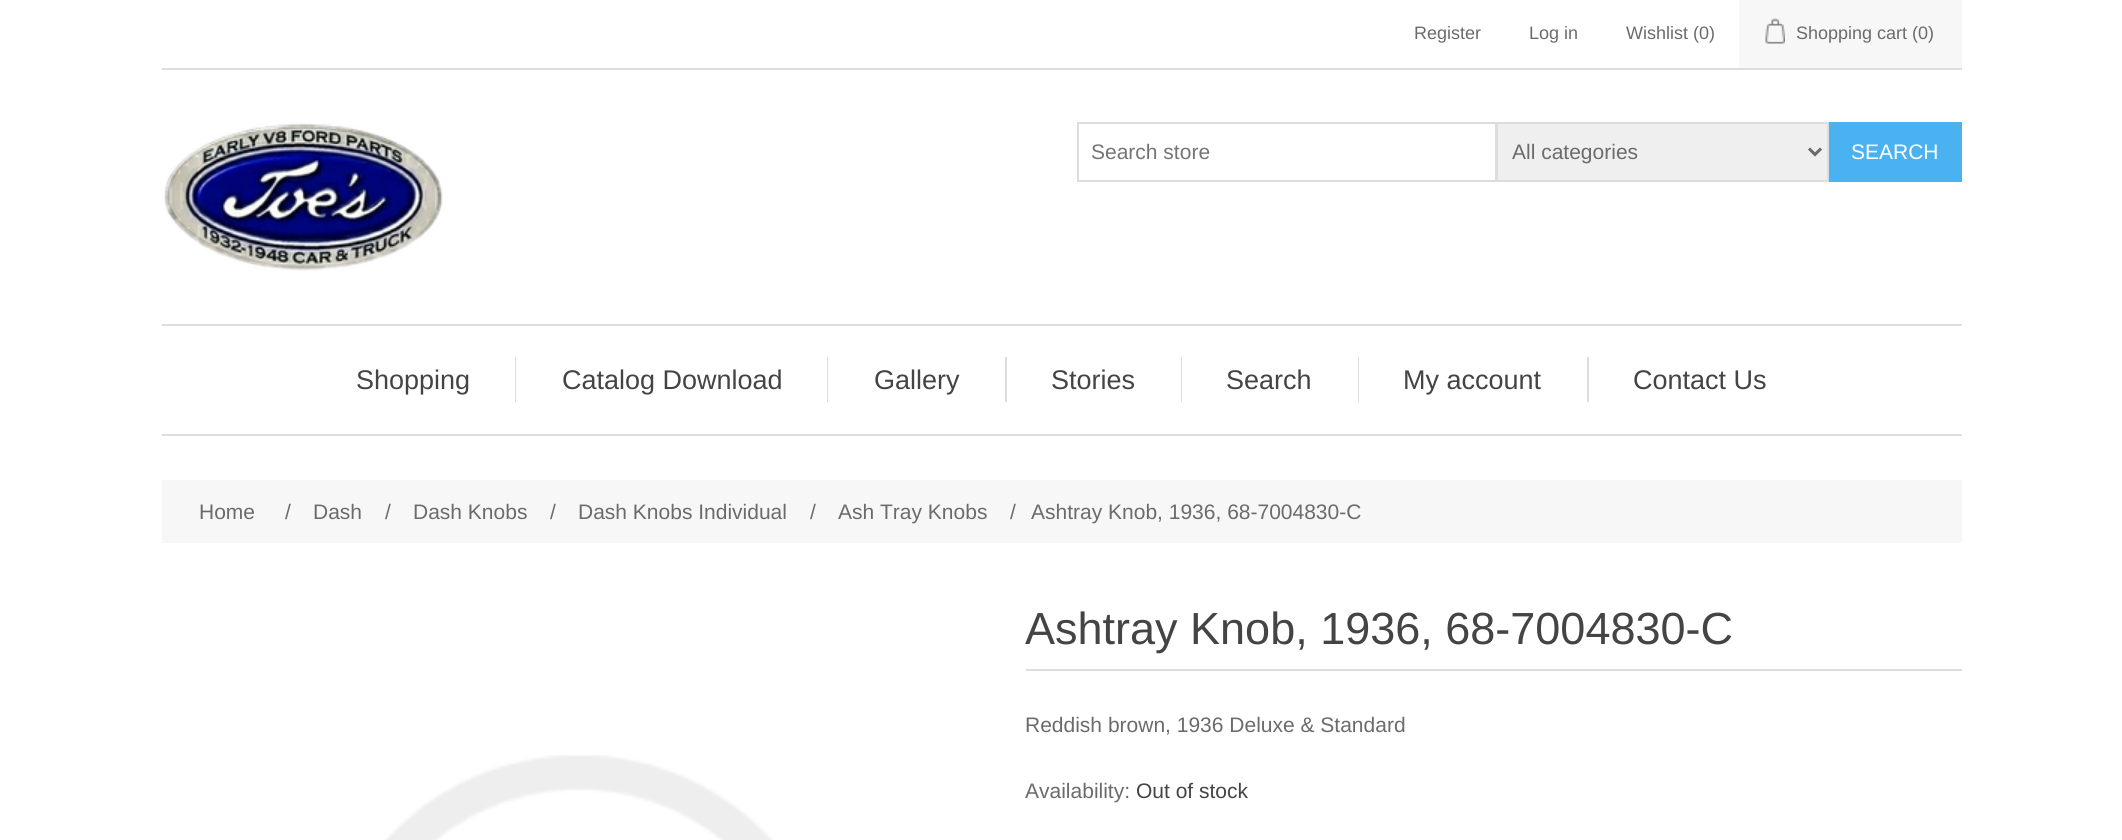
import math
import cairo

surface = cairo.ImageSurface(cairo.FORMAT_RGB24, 2122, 840)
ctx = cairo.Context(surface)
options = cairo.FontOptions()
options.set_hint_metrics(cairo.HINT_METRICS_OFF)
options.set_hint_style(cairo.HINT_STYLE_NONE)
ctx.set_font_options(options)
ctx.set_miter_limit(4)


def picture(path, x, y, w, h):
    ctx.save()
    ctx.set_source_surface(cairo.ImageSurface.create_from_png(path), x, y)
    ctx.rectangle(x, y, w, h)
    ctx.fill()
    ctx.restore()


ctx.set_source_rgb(1, 1, 1)
ctx.paint()
ctx.set_source_rgb(0.867, 0.867, 0.867)
ctx.rectangle(162, 68, 1800, 2)
ctx.fill()
ctx.select_font_face("Liberation Sans")
ctx.set_font_size(18)
ctx.set_source_rgb(0.42, 0.42, 0.42)
ctx.move_to(1414, 39)
ctx.show_text("Register")
ctx.move_to(1529, 39)
ctx.show_text("Log in")
ctx.move_to(1626, 39)
ctx.show_text("Wishlist (0)")
ctx.set_source_rgb(0.965, 0.965, 0.965)
ctx.rectangle(1739, 0, 223, 68)
ctx.fill()
picture("img1.png", 1765, 18, 20, 26)
ctx.set_source_rgb(0.42, 0.42, 0.42)
ctx.move_to(1796, 39)
ctx.show_text("Shopping cart (0)")
picture("img2.png", 164, 123, 279, 148)
ctx.rectangle(1078, 123, 418, 58)
ctx.set_source_rgb(0.867, 0.867, 0.867)
ctx.stroke()
ctx.set_font_size(21)
ctx.set_source_rgb(0.459, 0.459, 0.459)
ctx.move_to(1091, 159)
ctx.show_text("Search store")
ctx.set_source_rgb(0.937, 0.937, 0.937)
ctx.rectangle(1497, 123, 331, 58)
ctx.fill_preserve()
ctx.set_source_rgb(0.867, 0.867, 0.867)
ctx.stroke()
ctx.new_path()
ctx.move_to(1809, 148.5)
ctx.line_to(1815, 154.5)
ctx.line_to(1821, 148.5)
ctx.set_source_rgb(0.42, 0.42, 0.42)
ctx.set_line_width(3)
ctx.stroke()
ctx.move_to(1512, 159)
ctx.show_text("All categories")
ctx.set_source_rgb(0.29, 0.698, 0.945)
ctx.rectangle(1829, 122, 133, 60)
ctx.fill()
ctx.set_source_rgb(1, 1, 1)
ctx.move_to(1851, 159)
ctx.show_text("SEARCH")
ctx.set_source_rgb(0.867, 0.867, 0.867)
ctx.rectangle(162, 324, 1800, 2)
ctx.fill()
ctx.rectangle(162, 434, 1800, 2)
ctx.fill()
ctx.rectangle(515, 357, 1, 45)
ctx.fill()
ctx.set_font_size(27)
ctx.set_source_rgb(0.267, 0.267, 0.267)
ctx.move_to(356, 389)
ctx.show_text("Shopping")
ctx.set_source_rgb(0.867, 0.867, 0.867)
ctx.rectangle(827, 357, 1, 45)
ctx.fill()
ctx.set_source_rgb(0.267, 0.267, 0.267)
ctx.move_to(562, 389)
ctx.show_text("Catalog Download")
ctx.set_source_rgb(0.867, 0.867, 0.867)
ctx.rectangle(1005, 357, 2, 45)
ctx.fill()
ctx.set_source_rgb(0.267, 0.267, 0.267)
ctx.move_to(874, 389)
ctx.show_text("Gallery")
ctx.set_source_rgb(0.867, 0.867, 0.867)
ctx.rectangle(1181, 357, 1, 45)
ctx.fill()
ctx.set_source_rgb(0.267, 0.267, 0.267)
ctx.move_to(1051, 389)
ctx.show_text("Stories")
ctx.set_source_rgb(0.867, 0.867, 0.867)
ctx.rectangle(1358, 357, 1, 45)
ctx.fill()
ctx.set_source_rgb(0.267, 0.267, 0.267)
ctx.move_to(1226, 389)
ctx.show_text("Search")
ctx.set_source_rgb(0.867, 0.867, 0.867)
ctx.rectangle(1587, 357, 2, 45)
ctx.fill()
ctx.set_source_rgb(0.267, 0.267, 0.267)
ctx.move_to(1403, 389)
ctx.show_text("My account")
ctx.move_to(1633, 389)
ctx.show_text("Contact Us")
ctx.set_source_rgb(0.965, 0.965, 0.965)
ctx.rectangle(162, 480, 1800, 63)
ctx.fill()
ctx.set_font_size(21)
ctx.set_source_rgb(0.42, 0.42, 0.42)
ctx.move_to(199, 519)
ctx.show_text("Home")
ctx.move_to(285, 519)
ctx.show_text("/")
ctx.move_to(313, 519)
ctx.show_text("Dash")
ctx.move_to(385, 519)
ctx.show_text("/")
ctx.move_to(413, 519)
ctx.show_text("Dash Knobs")
ctx.move_to(550, 519)
ctx.show_text("/")
ctx.move_to(578, 519)
ctx.show_text("Dash Knobs Individual")
ctx.move_to(810, 519)
ctx.show_text("/")
ctx.move_to(838, 519)
ctx.show_text("Ash Tray Knobs")
ctx.move_to(1010, 519)
ctx.show_text("/")
ctx.move_to(1031, 519)
ctx.show_text("Ashtray Knob, 1936, 68-7004830-C")
picture("img3.png", 385, 755, 388, 85)
ctx.set_source_rgb(0.867, 0.867, 0.867)
ctx.rectangle(1026, 669, 936, 2)
ctx.fill()
ctx.set_font_size(45)
ctx.set_source_rgb(0.267, 0.267, 0.267)
ctx.move_to(1025, 644)
ctx.show_text("Ashtray Knob, 1936, 68-7004830-C")
ctx.set_font_size(21)
ctx.set_source_rgb(0.42, 0.42, 0.42)
ctx.move_to(1025, 732)
ctx.show_text("Reddish brown, 1936 Deluxe & Standard")
ctx.move_to(1025, 798)
ctx.show_text("Availability:")
ctx.set_source_rgb(0.267, 0.267, 0.267)
ctx.move_to(1136, 798)
ctx.show_text("Out of stock")
surface.write_to_png("page.png")
